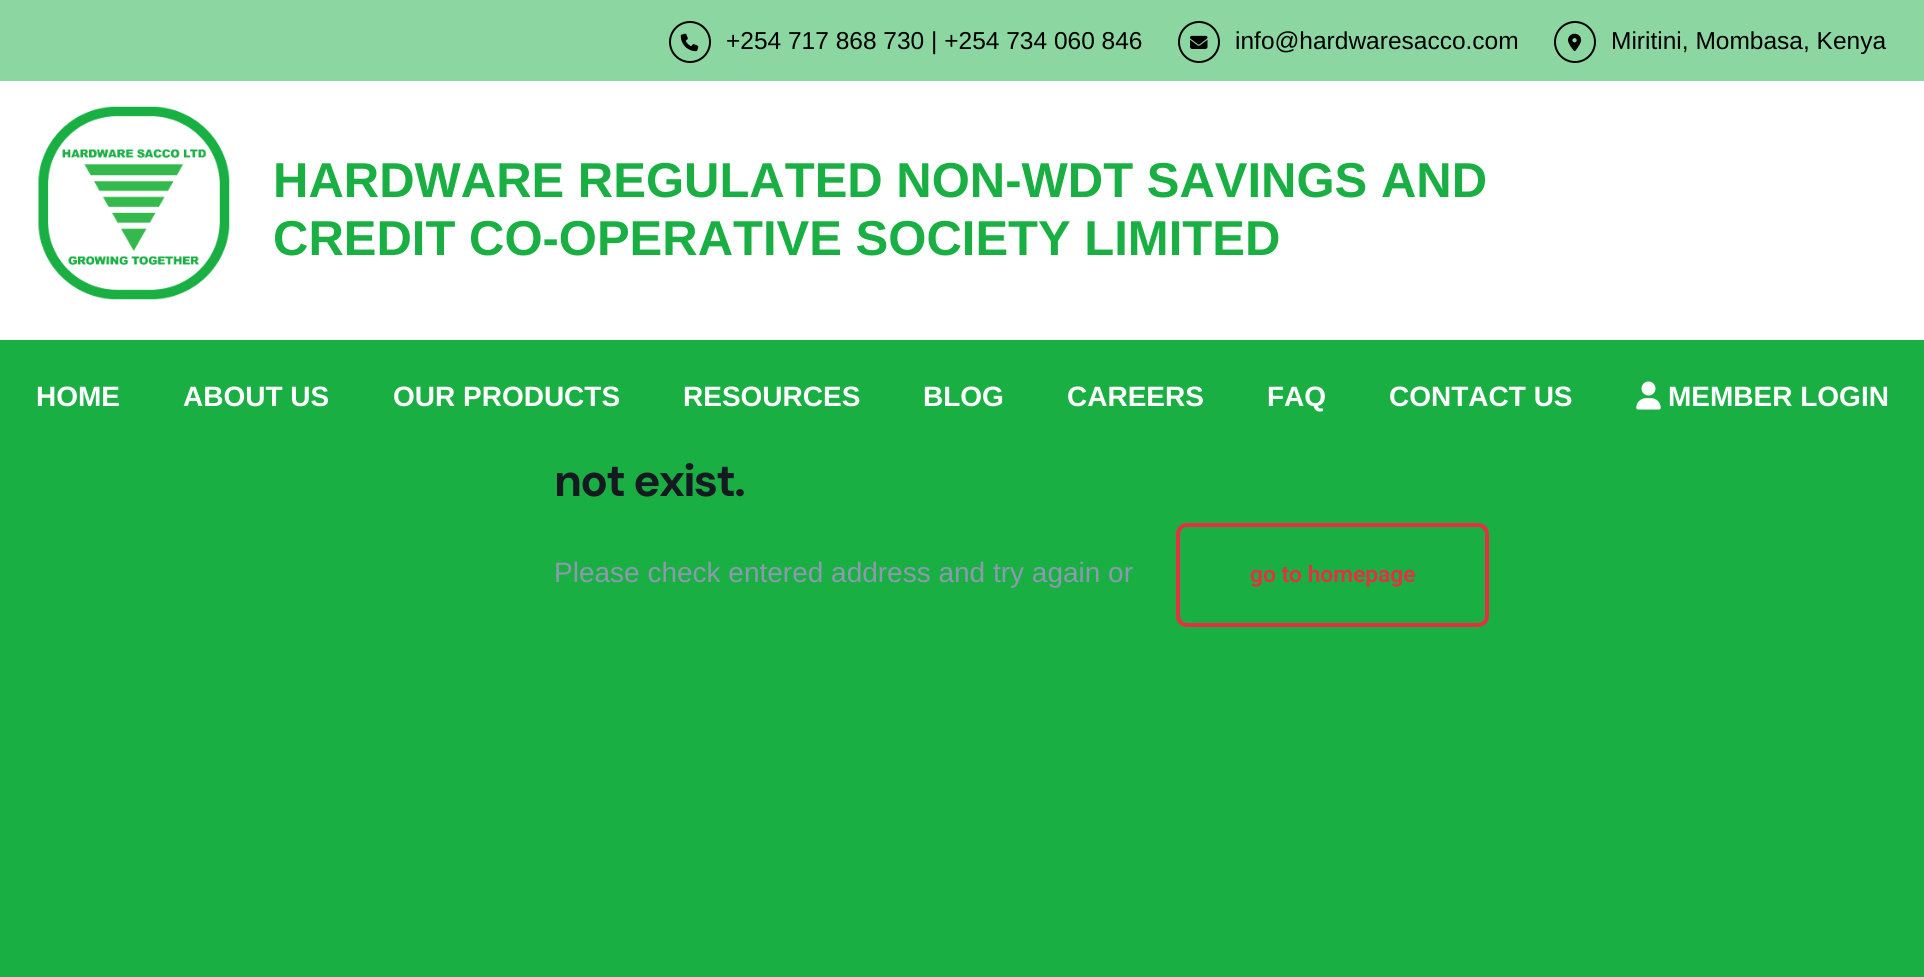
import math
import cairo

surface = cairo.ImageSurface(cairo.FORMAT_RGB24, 1924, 977)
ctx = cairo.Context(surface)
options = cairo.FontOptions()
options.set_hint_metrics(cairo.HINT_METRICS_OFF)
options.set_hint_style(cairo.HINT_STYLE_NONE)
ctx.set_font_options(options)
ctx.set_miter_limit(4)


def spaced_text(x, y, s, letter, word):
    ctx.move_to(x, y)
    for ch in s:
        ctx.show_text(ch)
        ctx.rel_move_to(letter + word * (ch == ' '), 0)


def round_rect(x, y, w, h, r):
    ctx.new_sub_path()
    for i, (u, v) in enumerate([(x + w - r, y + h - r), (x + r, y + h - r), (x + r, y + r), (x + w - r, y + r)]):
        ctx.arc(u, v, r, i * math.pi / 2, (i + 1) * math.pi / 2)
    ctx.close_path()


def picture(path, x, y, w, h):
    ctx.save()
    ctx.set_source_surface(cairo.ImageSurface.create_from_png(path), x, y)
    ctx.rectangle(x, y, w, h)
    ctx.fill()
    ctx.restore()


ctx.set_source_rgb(0.098, 0.686, 0.263)
ctx.paint()
ctx.set_source_rgb(0.549, 0.843, 0.631)
ctx.rectangle(0, 0, 1924, 81)
ctx.fill()
ctx.arc(690, 42, 20, 0, 2 * math.pi)
ctx.set_source_rgb(0, 0, 0)
ctx.stroke()
picture("img1.png", 680, 33, 19, 19)
ctx.select_font_face("Liberation Sans")
ctx.set_font_size(24.5)
ctx.move_to(726, 49)
ctx.show_text("+254 717 868 730 | +254 734 060 846")
ctx.new_path()
ctx.arc(1199, 42, 20, 0, 2 * math.pi)
ctx.stroke()
picture("img2.png", 1190, 35, 18, 14)
ctx.move_to(1235, 49)
ctx.show_text("info@hardwaresacco.com")
ctx.new_path()
ctx.arc(1575, 42, 20, 0, 2 * math.pi)
ctx.stroke()
picture("img3.png", 1568, 33, 14, 19)
ctx.move_to(1611, 49)
ctx.show_text("Miritini, Mombasa, Kenya")
ctx.set_source_rgb(1, 1, 1)
ctx.rectangle(0, 81, 1924, 259)
ctx.fill()
picture("img4.png", 38, 106, 192, 194)
ctx.select_font_face("Liberation Sans", cairo.FONT_SLANT_NORMAL, cairo.FONT_WEIGHT_BOLD)
ctx.set_font_size(49)
ctx.set_source_rgb(0.098, 0.686, 0.263)
ctx.move_to(273, 197)
ctx.show_text("HARDWARE REGULATED NON-WDT SAVINGS AND")
ctx.move_to(273, 255)
ctx.show_text("CREDIT CO-OPERATIVE SOCIETY LIMITED")
ctx.set_font_size(28)
ctx.set_source_rgb(1, 1, 1)
ctx.move_to(36, 406)
ctx.show_text("HOME")
ctx.move_to(183, 406)
ctx.show_text("ABOUT US")
ctx.move_to(393, 406)
ctx.show_text("OUR PRODUCTS")
ctx.move_to(683, 406)
ctx.show_text("RESOURCES")
ctx.move_to(923, 406)
ctx.show_text("BLOG")
ctx.move_to(1067, 406)
ctx.show_text("CAREERS")
ctx.move_to(1267, 406)
ctx.show_text("FAQ")
ctx.move_to(1389, 406)
ctx.show_text("CONTACT US")
picture("img5.png", 1636, 381, 25, 29)
ctx.move_to(1668, 406)
ctx.show_text("MEMBER LOGIN")
ctx.select_font_face("DM Sans", cairo.FONT_SLANT_NORMAL, cairo.FONT_WEIGHT_BOLD)
ctx.set_font_size(45.5)
ctx.set_source_rgb(0.086, 0.098, 0.133)
spaced_text(554, 496, "not exist.", -1.75, 0)
ctx.select_font_face("Liberation Sans")
ctx.set_font_size(28)
ctx.set_source_rgb(0.553, 0.6, 0.682)
ctx.move_to(554, 582)
ctx.show_text("Please check entered address and try again or")
round_rect(1178, 525, 309, 100, 9)
ctx.set_source_rgb(0.902, 0.184, 0.263)
ctx.set_line_width(4)
ctx.stroke()
ctx.select_font_face("Roboto SemiBold")
ctx.set_font_size(22.75)
ctx.move_to(1250, 582)
ctx.show_text("go to homepage")
surface.write_to_png("page.png")
